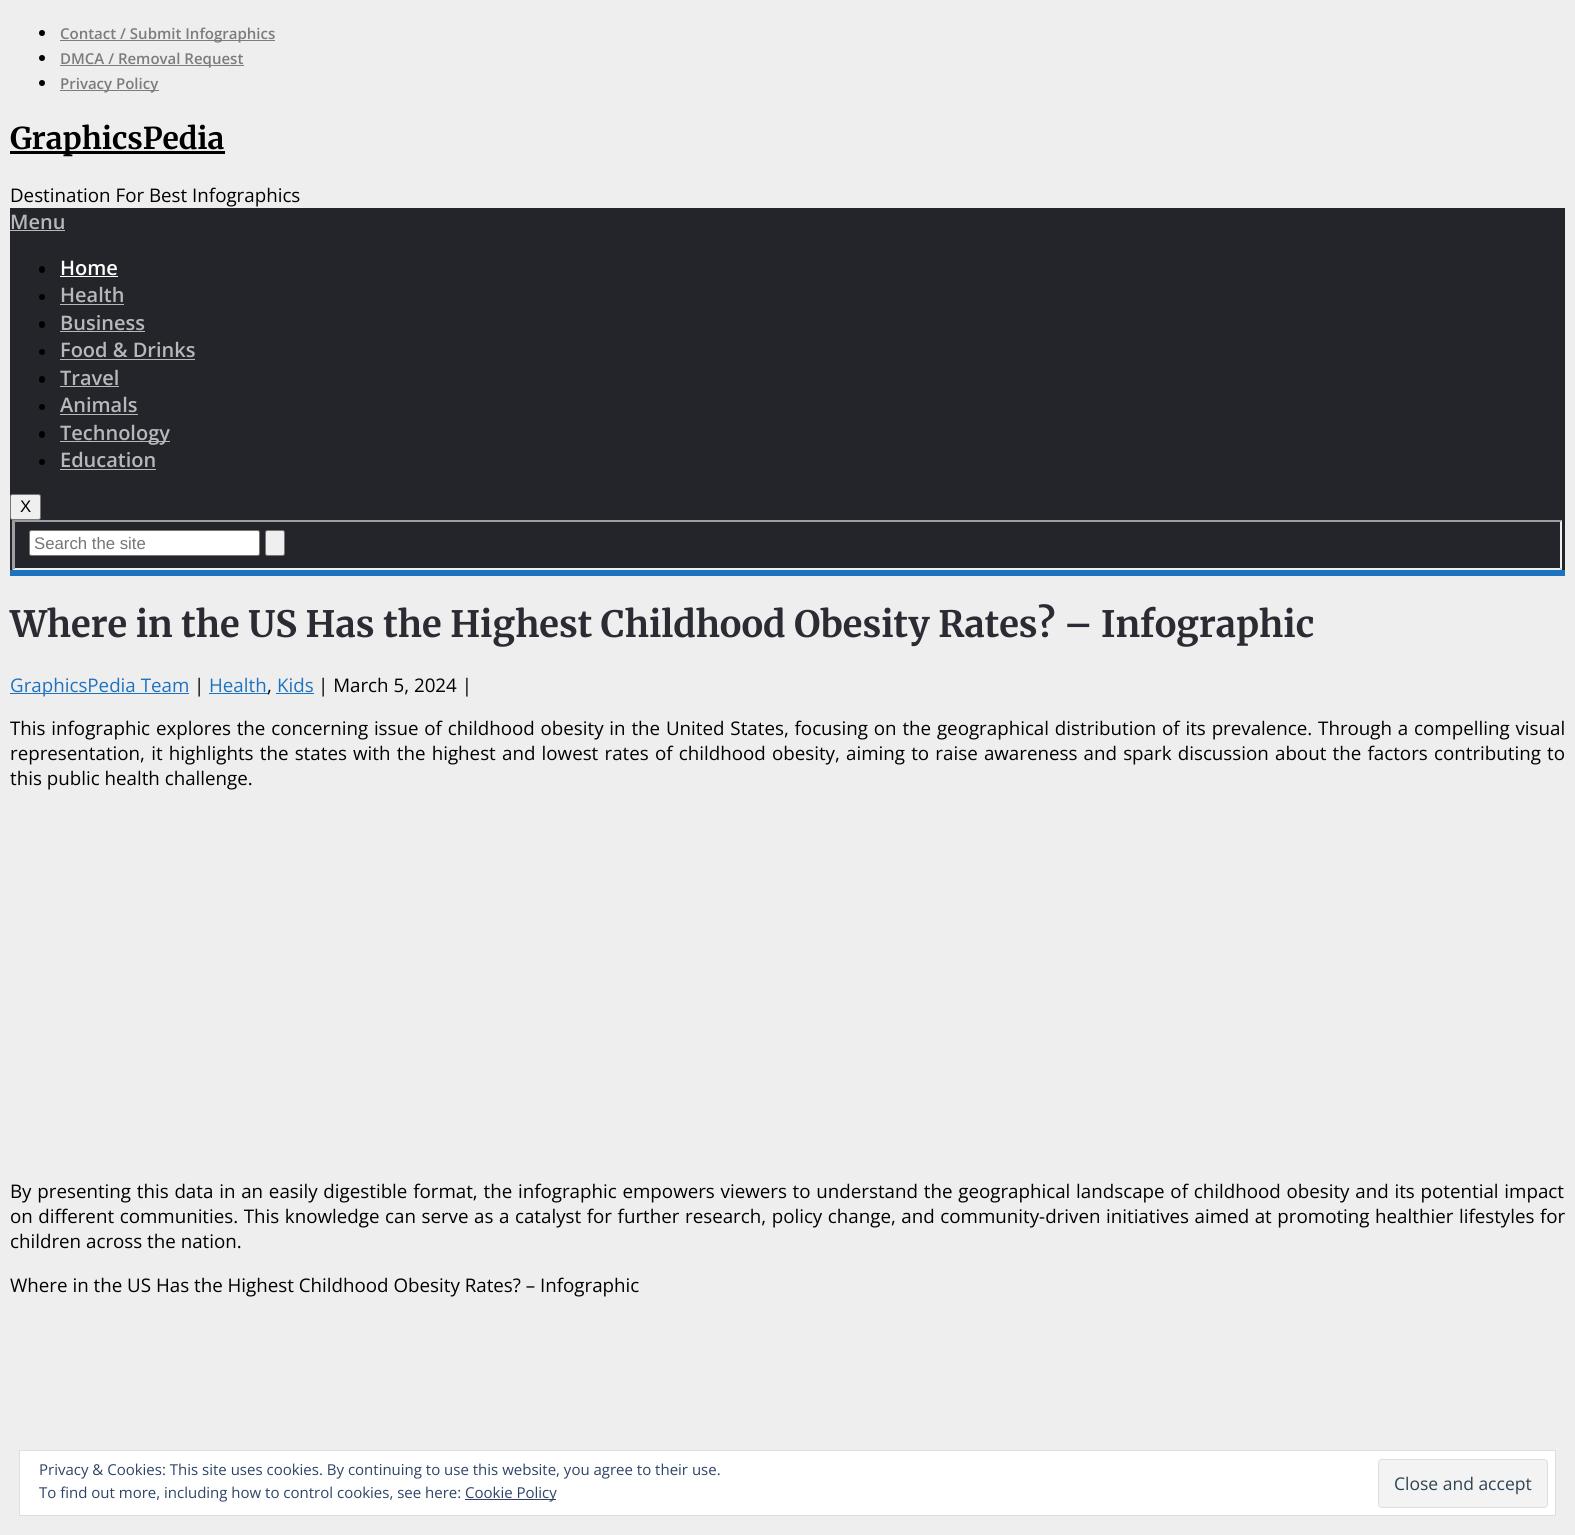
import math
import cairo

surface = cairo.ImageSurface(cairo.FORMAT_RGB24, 1575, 1535)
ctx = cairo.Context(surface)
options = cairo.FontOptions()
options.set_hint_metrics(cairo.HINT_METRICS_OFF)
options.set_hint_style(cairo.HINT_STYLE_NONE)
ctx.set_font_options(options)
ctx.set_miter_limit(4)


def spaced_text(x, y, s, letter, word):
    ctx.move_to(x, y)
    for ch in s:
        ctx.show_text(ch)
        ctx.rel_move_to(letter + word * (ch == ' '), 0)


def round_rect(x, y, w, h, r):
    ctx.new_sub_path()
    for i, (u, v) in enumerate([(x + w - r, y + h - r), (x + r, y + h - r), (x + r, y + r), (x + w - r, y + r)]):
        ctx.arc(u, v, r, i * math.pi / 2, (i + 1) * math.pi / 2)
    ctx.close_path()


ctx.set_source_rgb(0.933, 0.933, 0.933)
ctx.paint()
ctx.set_source_rgb(0, 0, 0)
ctx.arc(42, 33, 3, 0, 2 * math.pi)
ctx.fill()
ctx.set_source_rgb(0.486, 0.486, 0.486)
ctx.rectangle(60, 40, 215, 1)
ctx.fill()
ctx.select_font_face("Open Sans SemiBold")
ctx.set_font_size(15)
ctx.move_to(60, 39)
ctx.show_text("Contact / Submit Infographics")
ctx.set_source_rgb(0, 0, 0)
ctx.new_path()
ctx.arc(42, 58, 3, 0, 2 * math.pi)
ctx.fill()
ctx.set_source_rgb(0.486, 0.486, 0.486)
ctx.rectangle(60, 65, 184, 1)
ctx.fill()
ctx.move_to(60, 64)
ctx.show_text("DMCA / Removal Request")
ctx.set_source_rgb(0, 0, 0)
ctx.new_path()
ctx.arc(42, 83, 3, 0, 2 * math.pi)
ctx.fill()
ctx.set_source_rgb(0.486, 0.486, 0.486)
ctx.rectangle(60, 90, 99, 1)
ctx.fill()
ctx.move_to(60, 89)
ctx.show_text("Privacy Policy")
ctx.set_source_rgb(0, 0, 0)
ctx.rectangle(10, 151, 215, 3)
ctx.fill()
ctx.select_font_face("Merriweather Light")
ctx.set_font_size(30)
ctx.move_to(10, 149)
ctx.show_text("GraphicsPedia")
ctx.select_font_face("Open Sans")
ctx.set_font_size(18.75)
ctx.move_to(10, 202)
ctx.show_text("Destination For Best Infographics")
ctx.set_source_rgb(0.141, 0.145, 0.169)
ctx.rectangle(10, 208, 1555, 362)
ctx.fill()
ctx.select_font_face("Open Sans SemiBold")
ctx.set_font_size(20)
ctx.set_source_rgb(0.722, 0.722, 0.729)
ctx.move_to(10, 229)
ctx.show_text("Menu")
ctx.rectangle(10, 230, 55, 1)
ctx.fill()
ctx.set_source_rgb(0, 0, 0)
round_rect(39, 266, 6, 7, 3)
ctx.fill()
ctx.set_source_rgb(1, 1, 1)
ctx.move_to(60, 275)
ctx.show_text("Home")
ctx.rectangle(60, 276, 58, 1)
ctx.fill()
ctx.set_source_rgb(0, 0, 0)
ctx.arc(42, 297, 3, 0, 2 * math.pi)
ctx.fill()
ctx.set_source_rgb(0.722, 0.722, 0.729)
ctx.move_to(60, 302)
ctx.show_text("Health")
ctx.rectangle(60, 304, 64, 1)
ctx.fill()
ctx.set_source_rgb(0, 0, 0)
round_rect(39, 321, 6, 7, 3)
ctx.fill()
ctx.set_source_rgb(0.722, 0.722, 0.729)
ctx.move_to(60, 330)
ctx.show_text("Business")
ctx.rectangle(60, 331, 85, 1)
ctx.fill()
ctx.set_source_rgb(0, 0, 0)
ctx.arc(42, 352, 3, 0, 2 * math.pi)
ctx.fill()
ctx.set_source_rgb(0.722, 0.722, 0.729)
ctx.move_to(60, 357)
ctx.show_text("Food & Drinks")
ctx.rectangle(60, 359, 135, 1)
ctx.fill()
ctx.set_source_rgb(0, 0, 0)
round_rect(39, 376, 6, 7, 3)
ctx.fill()
ctx.set_source_rgb(0.722, 0.722, 0.729)
ctx.move_to(60, 385)
ctx.show_text("Travel")
ctx.rectangle(60, 386, 59, 1)
ctx.fill()
ctx.set_source_rgb(0, 0, 0)
ctx.arc(42, 407, 3, 0, 2 * math.pi)
ctx.fill()
ctx.set_source_rgb(0.722, 0.722, 0.729)
ctx.move_to(60, 412)
ctx.show_text("Animals")
ctx.rectangle(60, 414, 78, 1)
ctx.fill()
ctx.set_source_rgb(0, 0, 0)
round_rect(39, 431, 6, 7, 3)
ctx.fill()
ctx.set_source_rgb(0.722, 0.722, 0.729)
ctx.rectangle(60, 441, 110, 1)
ctx.fill()
ctx.move_to(60, 440)
ctx.show_text("Technology")
ctx.set_source_rgb(0, 0, 0)
ctx.new_path()
ctx.arc(42, 462, 3, 0, 2 * math.pi)
ctx.fill()
ctx.set_source_rgb(0.722, 0.722, 0.729)
ctx.move_to(60, 467)
ctx.show_text("Education")
ctx.rectangle(60, 469, 96, 1)
ctx.fill()
ctx.set_source_rgb(0.118, 0.451, 0.745)
ctx.rectangle(10, 570, 1555, 6)
ctx.fill()
ctx.set_source_rgb(0.937, 0.937, 0.937)
round_rect(10.5, 494.5, 30, 25, 2)
ctx.fill_preserve()
ctx.set_source_rgb(0.463, 0.463, 0.463)
ctx.set_line_width(1)
ctx.stroke()
ctx.select_font_face("Liberation Sans")
ctx.set_font_size(16.75)
ctx.set_source_rgb(0, 0, 0)
ctx.move_to(20, 512)
ctx.show_text("X")
ctx.set_source_rgb(0.624, 0.624, 0.624)
ctx.new_path()
ctx.move_to(12, 520)
ctx.line_to(1562, 520)
ctx.line_to(1560, 522)
ctx.line_to(15, 522)
ctx.close_path()
ctx.fill()
ctx.set_source_rgb(0.937, 0.937, 0.937)
ctx.new_path()
ctx.move_to(1562, 520)
ctx.line_to(1562, 570)
ctx.line_to(1560, 568)
ctx.line_to(1560, 522)
ctx.close_path()
ctx.fill()
ctx.new_path()
ctx.move_to(1562, 570)
ctx.line_to(12, 570)
ctx.line_to(15, 568)
ctx.line_to(1560, 568)
ctx.close_path()
ctx.fill()
ctx.set_source_rgb(0.624, 0.624, 0.624)
ctx.new_path()
ctx.move_to(12, 570)
ctx.line_to(12, 520)
ctx.line_to(15, 522)
ctx.line_to(15, 568)
ctx.close_path()
ctx.fill()
ctx.set_source_rgb(1, 1, 1)
round_rect(29.5, 530.5, 230, 25, 2)
ctx.fill_preserve()
ctx.set_source_rgb(0.463, 0.463, 0.463)
ctx.stroke()
ctx.set_source_rgb(0.459, 0.459, 0.459)
ctx.move_to(34, 549)
ctx.show_text("Search the site")
ctx.set_source_rgb(0.937, 0.937, 0.937)
round_rect(265.5, 530.5, 19, 25, 2)
ctx.fill_preserve()
ctx.set_source_rgb(0.463, 0.463, 0.463)
ctx.stroke()
ctx.select_font_face("Merriweather Light")
ctx.set_font_size(36.25)
ctx.set_source_rgb(0.169, 0.173, 0.2)
ctx.move_to(10, 637)
ctx.show_text("Where in the US Has the Highest Childhood Obesity Rates? – Infographic")
ctx.set_source_rgb(0.118, 0.451, 0.745)
ctx.rectangle(10, 693, 179, 1)
ctx.fill()
ctx.select_font_face("Open Sans")
ctx.set_font_size(18.75)
ctx.move_to(10, 692)
ctx.show_text("GraphicsPedia Team")
ctx.set_source_rgb(0, 0, 0)
ctx.move_to(194, 692)
ctx.show_text("|")
ctx.set_source_rgb(0.118, 0.451, 0.745)
ctx.move_to(209, 692)
ctx.show_text("Health")
ctx.rectangle(209, 693, 59, 1)
ctx.fill()
ctx.set_source_rgb(0, 0, 0)
ctx.move_to(267, 692)
ctx.show_text(",")
ctx.set_source_rgb(0.118, 0.451, 0.745)
ctx.rectangle(276, 693, 38, 1)
ctx.fill()
ctx.move_to(277, 692)
ctx.show_text("Kids")
ctx.set_source_rgb(0, 0, 0)
ctx.move_to(318, 692)
ctx.show_text("| March 5, 2024 |")
spaced_text(10, 735, "This infographic explores the concerning issue of childhood obesity in the United States, focusing on the geographical distribution of its prevalence. Through a compelling visual", 0, 0.95)
spaced_text(10, 760, "representation, it highlights the states with the highest and lowest rates of childhood obesity, aiming to raise awareness and spark discussion about the factors contributing to", 0, 1.35)
ctx.move_to(10, 785)
ctx.show_text("this public health challenge.")
spaced_text(10, 1198, "By presenting this data in an easily digestible format, the infographic empowers viewers to understand the geographical landscape of childhood obesity and its potential impact", 0, 0.9)
spaced_text(10, 1223, "on different communities. This knowledge can serve as a catalyst for further research, policy change, and community-driven initiatives aimed at promoting healthier lifestyles for", 0, 0.7)
ctx.move_to(10, 1248)
ctx.show_text("children across the nation.")
ctx.move_to(10, 1292)
ctx.show_text("Where in the US Has the Highest Childhood Obesity Rates? – Infographic")
ctx.set_source_rgb(1, 1, 1)
ctx.rectangle(19.5, 1450.5, 1536, 65)
ctx.fill_preserve()
ctx.set_source_rgb(0.871, 0.871, 0.871)
ctx.stroke()
ctx.set_font_size(15)
ctx.set_source_rgb(0.18, 0.267, 0.404)
ctx.move_to(39, 1475)
ctx.show_text("Privacy & Cookies: This site uses cookies. By continuing to use this website, you agree to their use.")
ctx.move_to(39, 1498)
ctx.show_text("To find out more, including how to control cookies, see here:")
ctx.rectangle(465, 1499, 91, 1)
ctx.fill()
ctx.move_to(465, 1498)
ctx.show_text("Cookie Policy")
ctx.set_source_rgb(0.953, 0.953, 0.953)
round_rect(1378.5, 1459.5, 169, 48, 3.5)
ctx.fill_preserve()
ctx.set_source_rgb(0.871, 0.871, 0.871)
ctx.stroke()
ctx.set_font_size(17.5)
ctx.set_source_rgb(0.18, 0.267, 0.325)
ctx.move_to(1394, 1490)
ctx.show_text("Close and accept")
surface.write_to_png("page.png")
